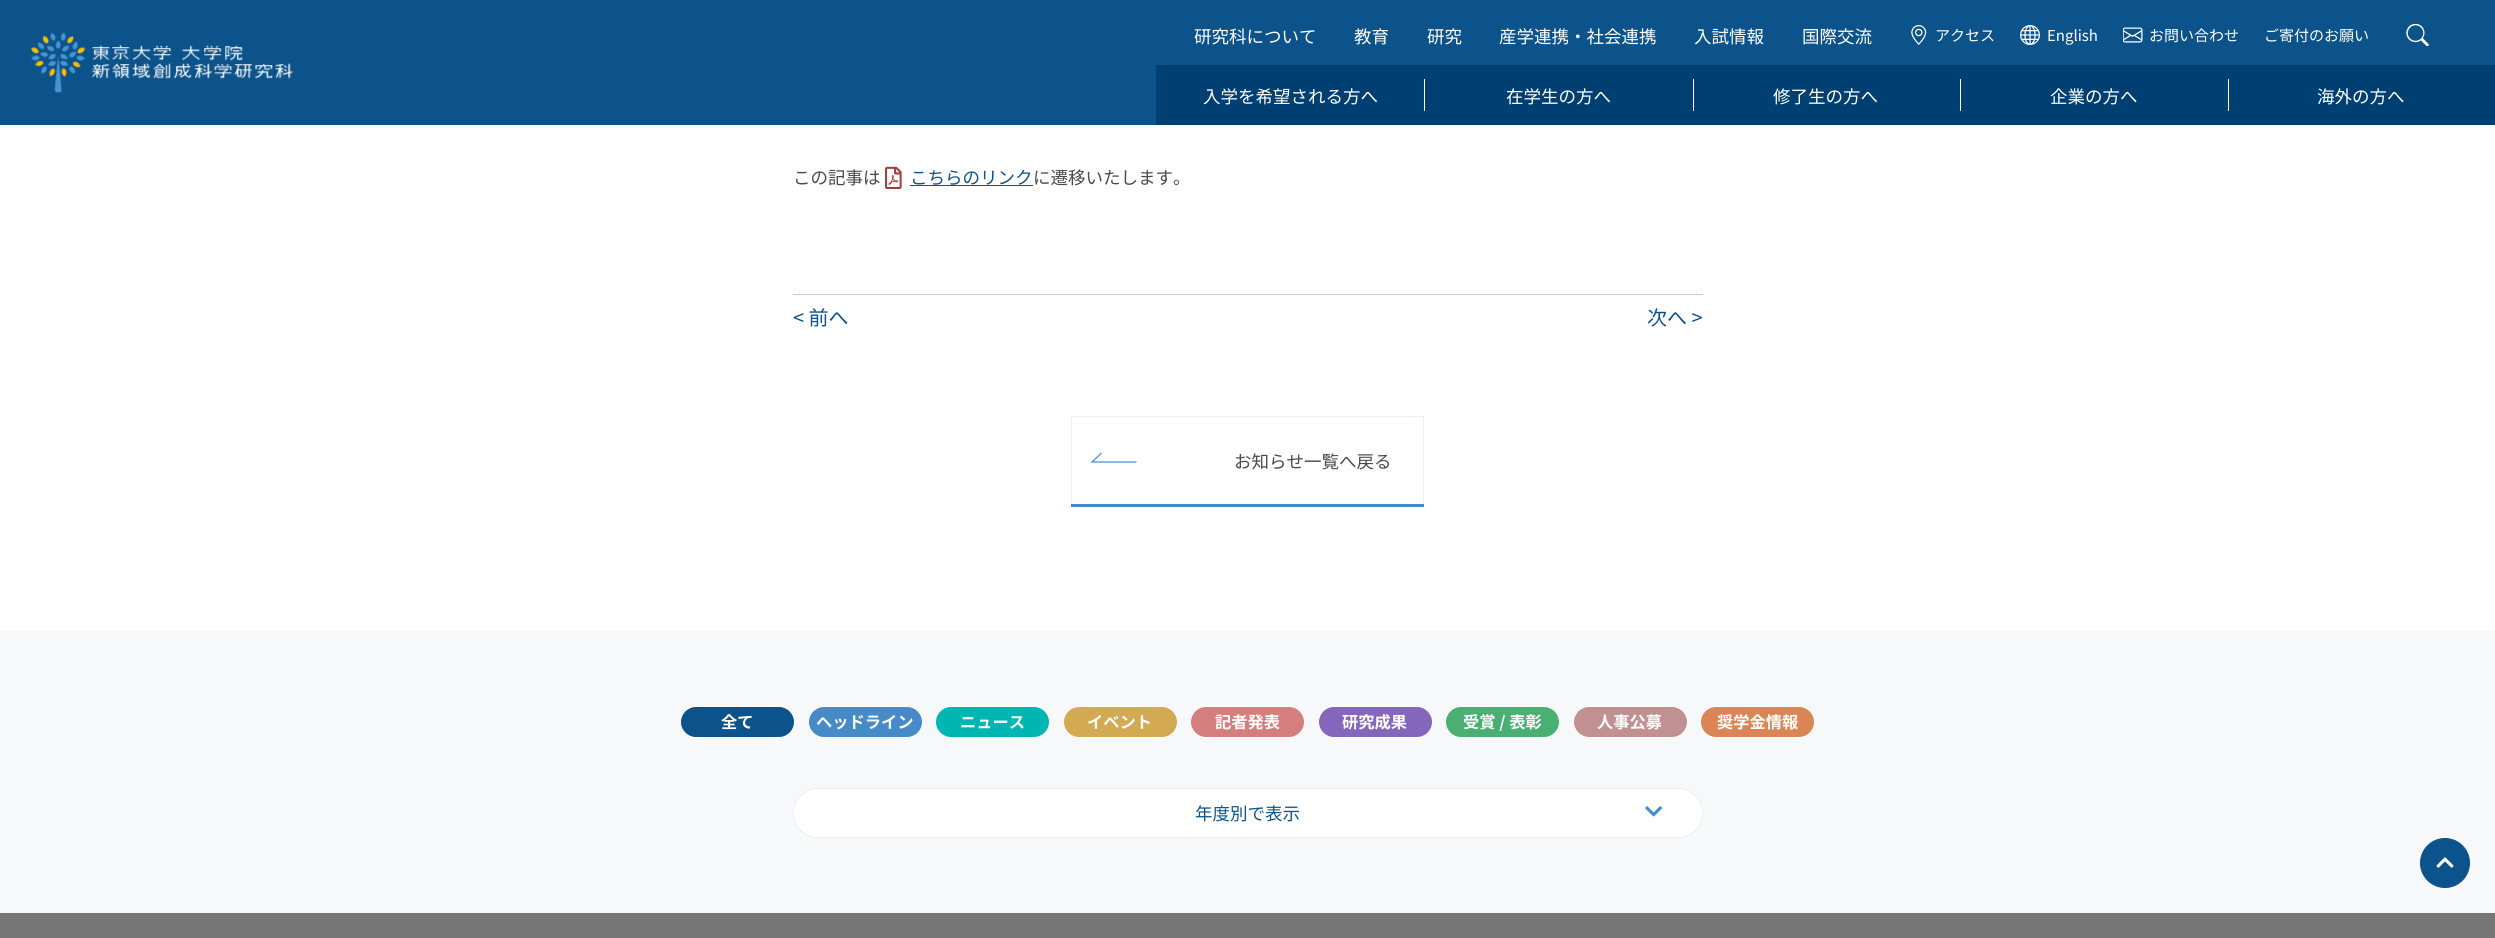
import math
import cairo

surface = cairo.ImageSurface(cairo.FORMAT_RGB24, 2495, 938)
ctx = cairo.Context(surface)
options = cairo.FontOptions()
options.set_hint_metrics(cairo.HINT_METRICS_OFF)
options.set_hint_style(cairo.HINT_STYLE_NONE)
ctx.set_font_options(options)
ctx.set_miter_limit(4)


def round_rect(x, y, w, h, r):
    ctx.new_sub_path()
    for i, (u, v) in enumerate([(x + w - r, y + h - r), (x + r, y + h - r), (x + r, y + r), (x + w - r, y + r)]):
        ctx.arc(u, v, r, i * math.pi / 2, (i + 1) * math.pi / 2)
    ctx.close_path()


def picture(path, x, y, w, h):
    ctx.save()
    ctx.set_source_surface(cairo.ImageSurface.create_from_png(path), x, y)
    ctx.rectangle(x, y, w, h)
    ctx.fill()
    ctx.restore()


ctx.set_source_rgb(1, 1, 1)
ctx.paint()
ctx.set_source_rgb(0.047, 0.325, 0.545)
ctx.rectangle(0, 0, 2495, 125)
ctx.fill()
picture("img1.png", 31, 32, 262, 61)
ctx.select_font_face("Noto Sans JP")
ctx.set_font_size(17.5)
ctx.set_source_rgb(1, 1, 1)
ctx.move_to(1194, 43)
ctx.show_text("研究科について")
ctx.move_to(1354, 43)
ctx.show_text("教育")
ctx.move_to(1427, 43)
ctx.show_text("研究")
ctx.move_to(1499, 43)
ctx.show_text("産学連携・社会連携")
ctx.move_to(1694, 43)
ctx.show_text("入試情報")
ctx.move_to(1802, 43)
ctx.show_text("国際交流")
picture("img2.png", 1911, 25, 16, 20)
ctx.set_font_size(15)
ctx.move_to(1935, 41)
ctx.show_text("アクセス")
picture("img3.png", 2020, 25, 20, 20)
ctx.move_to(2047, 41)
ctx.show_text("English")
picture("img4.png", 2123, 27, 20, 16)
ctx.move_to(2149, 41)
ctx.show_text("お問い合わせ")
ctx.move_to(2264, 41)
ctx.show_text("ご寄付のお願い")
picture("img5.png", 2406, 24, 23, 22)
ctx.set_source_rgb(0, 0.247, 0.443)
ctx.rectangle(1156, 65, 1339, 60)
ctx.fill()
ctx.set_font_size(17.5)
ctx.set_source_rgb(1, 1, 1)
ctx.move_to(1203, 103)
ctx.show_text("入学を希望される方へ")
ctx.rectangle(1424, 79, 1, 32)
ctx.fill()
ctx.move_to(1506, 103)
ctx.show_text("在学生の方へ")
ctx.rectangle(1693, 79, 1, 32)
ctx.fill()
ctx.move_to(1773, 103)
ctx.show_text("修了生の方へ")
ctx.rectangle(1960, 79, 1, 32)
ctx.fill()
ctx.move_to(2050, 103)
ctx.show_text("企業の方へ")
ctx.rectangle(2228, 79, 1, 32)
ctx.fill()
ctx.move_to(2317, 103)
ctx.show_text("海外の方へ")
ctx.set_source_rgb(0.29, 0.29, 0.29)
ctx.move_to(793, 184)
ctx.show_text("この記事は")
picture("img6.png", 885, 166, 17, 23)
ctx.set_source_rgb(0.047, 0.322, 0.545)
ctx.move_to(910, 184)
ctx.show_text("こちらのリンク")
ctx.rectangle(910, 185, 123, 1)
ctx.fill()
ctx.set_source_rgb(0.29, 0.29, 0.29)
ctx.move_to(1033, 184)
ctx.show_text("に遷移いたします。")
ctx.set_source_rgb(0.761, 0.808, 0.847)
ctx.rectangle(793, 294, 910, 1)
ctx.fill()
ctx.set_font_size(20)
ctx.set_source_rgb(0.047, 0.322, 0.545)
ctx.move_to(793, 325)
ctx.show_text("< 前へ")
ctx.move_to(1647, 325)
ctx.show_text("次へ >")
ctx.rectangle(1071.5, 416.5, 352, 89)
ctx.set_source_rgb(0.914, 0.949, 0.969)
ctx.set_line_width(1)
ctx.stroke()
ctx.new_path()
ctx.move_to(1136.5, 462)
ctx.line_to(1092, 462)
ctx.line_to(1101.5, 453)
ctx.set_source_rgb(0.275, 0.541, 0.784)
ctx.set_line_width(1.2)
ctx.stroke()
ctx.set_font_size(17.5)
ctx.set_source_rgb(0.29, 0.29, 0.29)
ctx.move_to(1234, 468)
ctx.show_text("お知らせ一覧へ戻る")
ctx.set_source_rgb(0.275, 0.541, 0.784)
ctx.rectangle(1071, 504, 353, 3)
ctx.fill()
ctx.set_source_rgb(0.965, 0.969, 0.973)
ctx.rectangle(0, 631, 2495, 282)
ctx.fill()
ctx.set_source_rgb(0.047, 0.322, 0.545)
round_rect(680.5, 706.5, 114, 31, 15.5)
ctx.fill_preserve()
ctx.set_source_rgb(1, 1, 1)
ctx.set_line_width(1)
ctx.stroke()
ctx.select_font_face("Noto Sans JP", cairo.FONT_SLANT_NORMAL, cairo.FONT_WEIGHT_BOLD)
ctx.set_font_size(16.25)
ctx.move_to(721, 728)
ctx.show_text("全て")
ctx.set_source_rgb(0.275, 0.541, 0.784)
round_rect(808.5, 706.5, 114, 31, 15.5)
ctx.fill_preserve()
ctx.set_source_rgb(1, 1, 1)
ctx.stroke()
ctx.move_to(816, 728)
ctx.show_text("ヘッドライン")
ctx.set_source_rgb(0, 0.71, 0.698)
round_rect(935.5, 706.5, 114, 31, 15.5)
ctx.fill_preserve()
ctx.set_source_rgb(1, 1, 1)
ctx.stroke()
ctx.move_to(960, 728)
ctx.show_text("ニュース")
ctx.set_source_rgb(0.831, 0.663, 0.329)
round_rect(1063.5, 706.5, 114, 31, 15.5)
ctx.fill_preserve()
ctx.set_source_rgb(1, 1, 1)
ctx.stroke()
ctx.move_to(1087, 728)
ctx.show_text("イベント")
ctx.set_source_rgb(0.839, 0.494, 0.494)
round_rect(1190.5, 706.5, 114, 31, 15.5)
ctx.fill_preserve()
ctx.set_source_rgb(1, 1, 1)
ctx.stroke()
ctx.move_to(1215, 728)
ctx.show_text("記者発表")
ctx.set_source_rgb(0.518, 0.4, 0.737)
round_rect(1318.5, 706.5, 114, 31, 15.5)
ctx.fill_preserve()
ctx.set_source_rgb(1, 1, 1)
ctx.stroke()
ctx.move_to(1342, 728)
ctx.show_text("研究成果")
ctx.set_source_rgb(0.29, 0.686, 0.447)
round_rect(1445.5, 706.5, 114, 31, 15.5)
ctx.fill_preserve()
ctx.set_source_rgb(1, 1, 1)
ctx.stroke()
ctx.move_to(1463, 728)
ctx.show_text("受賞 / 表彰")
ctx.set_source_rgb(0.757, 0.569, 0.569)
round_rect(1573.5, 706.5, 114, 31, 15.5)
ctx.fill_preserve()
ctx.set_source_rgb(1, 1, 1)
ctx.stroke()
ctx.move_to(1597, 728)
ctx.show_text("人事公募")
ctx.set_source_rgb(0.859, 0.518, 0.337)
round_rect(1700.5, 706.5, 114, 31, 15.5)
ctx.fill_preserve()
ctx.set_source_rgb(1, 1, 1)
ctx.stroke()
ctx.move_to(1717, 728)
ctx.show_text("奨学金情報")
round_rect(793.5, 788.5, 909, 49, 24.5)
ctx.fill_preserve()
ctx.set_source_rgb(0.914, 0.937, 0.957)
ctx.stroke()
ctx.select_font_face("Noto Sans JP")
ctx.set_font_size(17.5)
ctx.set_source_rgb(0.047, 0.322, 0.545)
ctx.move_to(1195, 820)
ctx.show_text("年度別で表示")
picture("img7.png", 1645, 806, 17, 11)
ctx.arc(2445, 863, 24.5, 0, 2 * math.pi)
ctx.fill_preserve()
ctx.stroke()
picture("img8.png", 2436, 857, 18, 11)
ctx.set_source_rgb(0.463, 0.463, 0.463)
ctx.rectangle(0, 913, 2495, 25)
ctx.fill()
surface.write_to_png("page.png")
